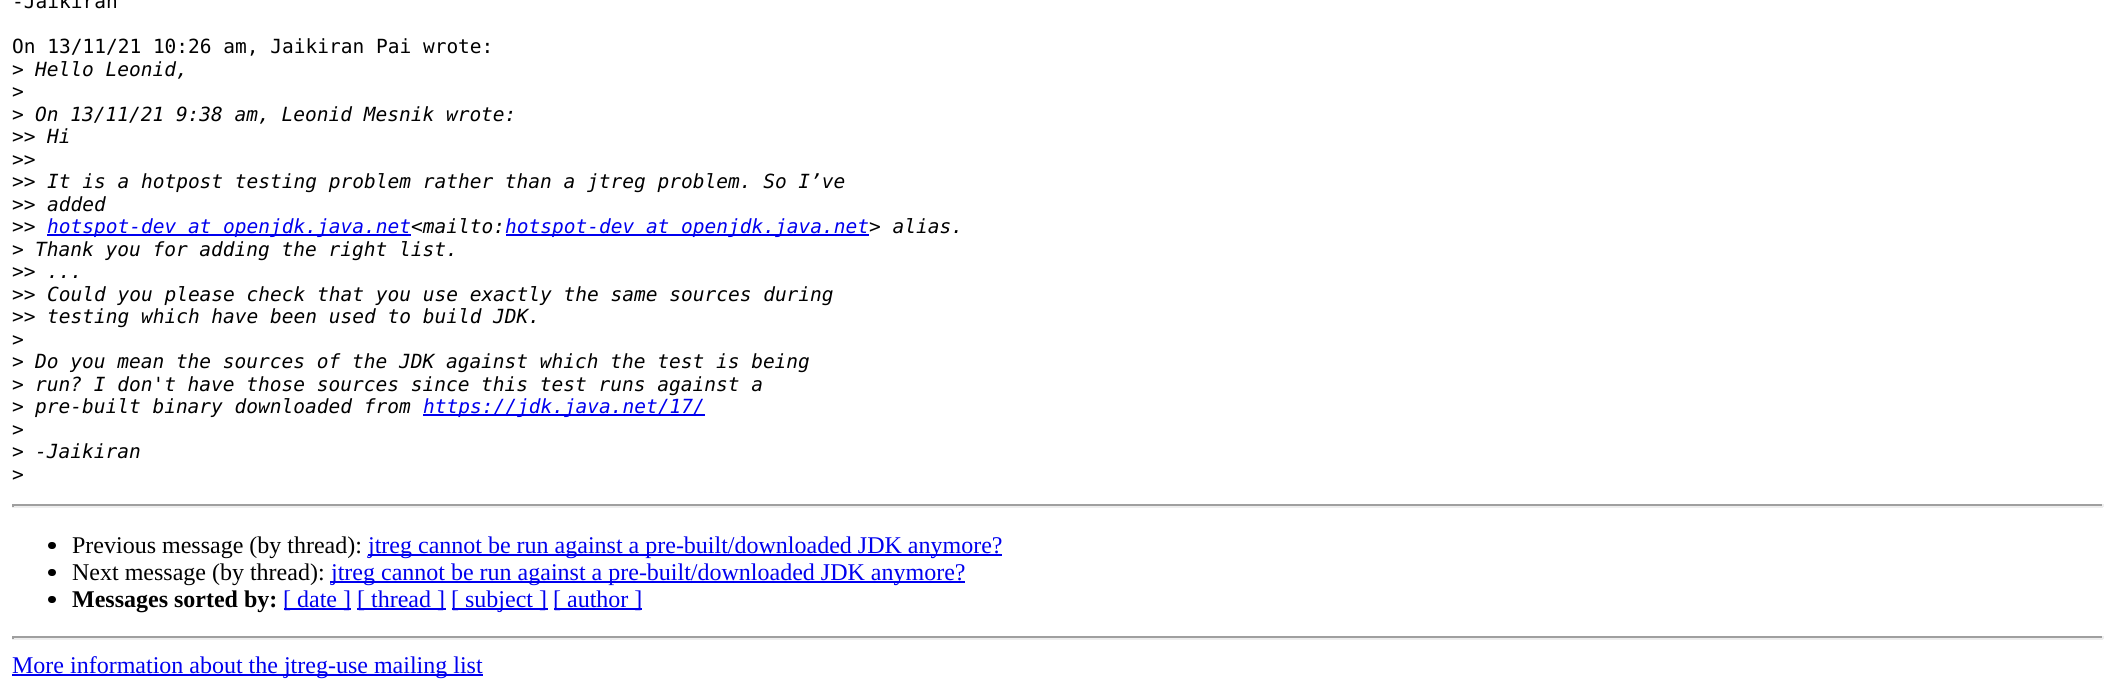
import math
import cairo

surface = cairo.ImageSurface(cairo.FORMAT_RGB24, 2115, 689)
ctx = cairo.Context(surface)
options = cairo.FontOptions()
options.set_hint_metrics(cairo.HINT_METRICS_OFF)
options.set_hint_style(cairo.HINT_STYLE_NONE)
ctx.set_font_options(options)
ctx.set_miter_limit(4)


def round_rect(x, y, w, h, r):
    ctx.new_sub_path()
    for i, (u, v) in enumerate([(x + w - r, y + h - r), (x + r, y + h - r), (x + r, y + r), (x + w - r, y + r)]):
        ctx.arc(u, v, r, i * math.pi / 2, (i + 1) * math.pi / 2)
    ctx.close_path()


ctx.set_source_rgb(1, 1, 1)
ctx.paint()
ctx.select_font_face("DejaVu Sans Mono")
ctx.set_font_size(19.5)
ctx.set_source_rgb(0, 0, 0)
ctx.move_to(12, 8)
ctx.show_text("-Jaikiran")
ctx.move_to(12, 53)
ctx.show_text("On 13/11/21 10:26 am, Jaikiran Pai wrote:")
ctx.move_to(12, 76)
ctx.show_text(">")
ctx.select_font_face("DejaVu Sans Mono", cairo.FONT_SLANT_ITALIC)
ctx.move_to(35, 76)
ctx.show_text("Hello Leonid,")
ctx.select_font_face("DejaVu Sans Mono")
ctx.move_to(12, 98)
ctx.show_text(">")
ctx.move_to(12, 121)
ctx.show_text(">")
ctx.select_font_face("DejaVu Sans Mono", cairo.FONT_SLANT_ITALIC)
ctx.move_to(35, 121)
ctx.show_text("On 13/11/21 9:38 am, Leonid Mesnik wrote:")
ctx.select_font_face("DejaVu Sans Mono")
ctx.move_to(12, 143)
ctx.show_text(">>")
ctx.select_font_face("DejaVu Sans Mono", cairo.FONT_SLANT_ITALIC)
ctx.move_to(47, 143)
ctx.show_text("Hi")
ctx.select_font_face("DejaVu Sans Mono")
ctx.move_to(12, 166)
ctx.show_text(">>")
ctx.move_to(12, 188)
ctx.show_text(">>")
ctx.select_font_face("DejaVu Sans Mono", cairo.FONT_SLANT_ITALIC)
ctx.move_to(47, 188)
ctx.show_text("It is a hotpost testing problem rather than a jtreg problem. So I’ve")
ctx.select_font_face("DejaVu Sans Mono")
ctx.move_to(12, 211)
ctx.show_text(">>")
ctx.select_font_face("DejaVu Sans Mono", cairo.FONT_SLANT_ITALIC)
ctx.move_to(47, 211)
ctx.show_text("added")
ctx.select_font_face("DejaVu Sans Mono")
ctx.move_to(12, 233)
ctx.show_text(">>")
ctx.set_source_rgb(0, 0, 0.933)
ctx.rectangle(47, 234, 364, 2)
ctx.fill()
ctx.select_font_face("DejaVu Sans Mono", cairo.FONT_SLANT_ITALIC)
ctx.move_to(47, 233)
ctx.show_text("hotspot-dev at openjdk.java.net")
ctx.set_source_rgb(0, 0, 0)
ctx.move_to(411, 233)
ctx.show_text("<mailto:")
ctx.set_source_rgb(0, 0, 0.933)
ctx.rectangle(506, 234, 363, 2)
ctx.fill()
ctx.move_to(505, 233)
ctx.show_text("hotspot-dev at openjdk.java.net")
ctx.set_source_rgb(0, 0, 0)
ctx.move_to(869, 233)
ctx.show_text("> alias.")
ctx.select_font_face("DejaVu Sans Mono")
ctx.move_to(12, 256)
ctx.show_text(">")
ctx.select_font_face("DejaVu Sans Mono", cairo.FONT_SLANT_ITALIC)
ctx.move_to(35, 256)
ctx.show_text("Thank you for adding the right list.")
ctx.select_font_face("DejaVu Sans Mono")
ctx.move_to(12, 278)
ctx.show_text(">>")
ctx.select_font_face("DejaVu Sans Mono", cairo.FONT_SLANT_ITALIC)
ctx.move_to(47, 278)
ctx.show_text("...")
ctx.select_font_face("DejaVu Sans Mono")
ctx.move_to(12, 301)
ctx.show_text(">>")
ctx.select_font_face("DejaVu Sans Mono", cairo.FONT_SLANT_ITALIC)
ctx.move_to(47, 301)
ctx.show_text("Could you please check that you use exactly the same sources during")
ctx.select_font_face("DejaVu Sans Mono")
ctx.move_to(12, 323)
ctx.show_text(">>")
ctx.select_font_face("DejaVu Sans Mono", cairo.FONT_SLANT_ITALIC)
ctx.move_to(47, 323)
ctx.show_text("testing which have been used to build JDK.")
ctx.select_font_face("DejaVu Sans Mono")
ctx.move_to(12, 346)
ctx.show_text(">")
ctx.move_to(12, 368)
ctx.show_text(">")
ctx.select_font_face("DejaVu Sans Mono", cairo.FONT_SLANT_ITALIC)
ctx.move_to(35, 368)
ctx.show_text("Do you mean the sources of the JDK against which the test is being")
ctx.select_font_face("DejaVu Sans Mono")
ctx.move_to(12, 391)
ctx.show_text(">")
ctx.select_font_face("DejaVu Sans Mono", cairo.FONT_SLANT_ITALIC)
ctx.move_to(35, 391)
ctx.show_text("run? I don't have those sources since this test runs against a")
ctx.select_font_face("DejaVu Sans Mono")
ctx.move_to(12, 413)
ctx.show_text(">")
ctx.select_font_face("DejaVu Sans Mono", cairo.FONT_SLANT_ITALIC)
ctx.move_to(35, 413)
ctx.show_text("pre-built binary downloaded from")
ctx.set_source_rgb(0, 0, 0.933)
ctx.rectangle(423, 414, 282, 2)
ctx.fill()
ctx.move_to(423, 413)
ctx.show_text("https://jdk.java.net/17/")
ctx.select_font_face("DejaVu Sans Mono")
ctx.set_source_rgb(0, 0, 0)
ctx.move_to(12, 436)
ctx.show_text(">")
ctx.move_to(12, 458)
ctx.show_text(">")
ctx.select_font_face("DejaVu Sans Mono", cairo.FONT_SLANT_ITALIC)
ctx.move_to(35, 458)
ctx.show_text("-Jaikiran")
ctx.select_font_face("DejaVu Sans Mono")
ctx.move_to(12, 481)
ctx.show_text(">")
ctx.set_source_rgb(0.624, 0.624, 0.624)
ctx.rectangle(12, 504, 2091, 2)
ctx.fill()
ctx.set_source_rgb(0.933, 0.933, 0.933)
ctx.rectangle(2102, 504, 2, 3)
ctx.fill()
ctx.rectangle(12, 506, 2091, 2)
ctx.fill()
ctx.set_source_rgb(0.624, 0.624, 0.624)
ctx.rectangle(12, 504, 2, 3)
ctx.fill()
ctx.set_source_rgb(0, 0, 0)
round_rect(48, 542, 8, 7, 3.5)
ctx.fill()
ctx.select_font_face("Liberation Serif")
ctx.set_font_size(24)
ctx.move_to(72, 553)
ctx.show_text("Previous message (by thread):")
ctx.set_source_rgb(0, 0, 0.933)
ctx.rectangle(368, 554, 634, 2)
ctx.fill()
ctx.move_to(368, 553)
ctx.show_text("jtreg cannot be run against a pre-built/downloaded JDK anymore?")
ctx.set_source_rgb(0, 0, 0)
round_rect(48, 569, 8, 7, 3.5)
ctx.fill()
ctx.move_to(72, 580)
ctx.show_text("Next message (by thread):")
ctx.set_source_rgb(0, 0, 0.933)
ctx.rectangle(330, 581, 635, 2)
ctx.fill()
ctx.move_to(331, 580)
ctx.show_text("jtreg cannot be run against a pre-built/downloaded JDK anymore?")
ctx.set_source_rgb(0, 0, 0)
round_rect(48, 596, 8, 7, 3.5)
ctx.fill()
ctx.select_font_face("Liberation Serif", cairo.FONT_SLANT_NORMAL, cairo.FONT_WEIGHT_BOLD)
ctx.move_to(72, 607)
ctx.show_text("Messages sorted by:")
ctx.set_source_rgb(0, 0, 0.933)
ctx.rectangle(284, 608, 67, 2)
ctx.fill()
ctx.select_font_face("Liberation Serif")
ctx.move_to(283, 607)
ctx.show_text("[ date ]")
ctx.rectangle(357, 608, 89, 2)
ctx.fill()
ctx.move_to(357, 607)
ctx.show_text("[ thread ]")
ctx.rectangle(452, 608, 96, 2)
ctx.fill()
ctx.move_to(451, 607)
ctx.show_text("[ subject ]")
ctx.rectangle(554, 608, 88, 2)
ctx.fill()
ctx.move_to(553, 607)
ctx.show_text("[ author ]")
ctx.set_source_rgb(0.624, 0.624, 0.624)
ctx.rectangle(12, 636, 2091, 2)
ctx.fill()
ctx.set_source_rgb(0.933, 0.933, 0.933)
ctx.rectangle(2102, 636, 2, 3)
ctx.fill()
ctx.rectangle(12, 638, 2091, 2)
ctx.fill()
ctx.set_source_rgb(0.624, 0.624, 0.624)
ctx.rectangle(12, 636, 2, 3)
ctx.fill()
ctx.set_source_rgb(0, 0, 0.933)
ctx.rectangle(12, 674, 471, 2)
ctx.fill()
ctx.move_to(12, 673)
ctx.show_text("More information about the jtreg-use mailing list")
surface.write_to_png("page.png")
